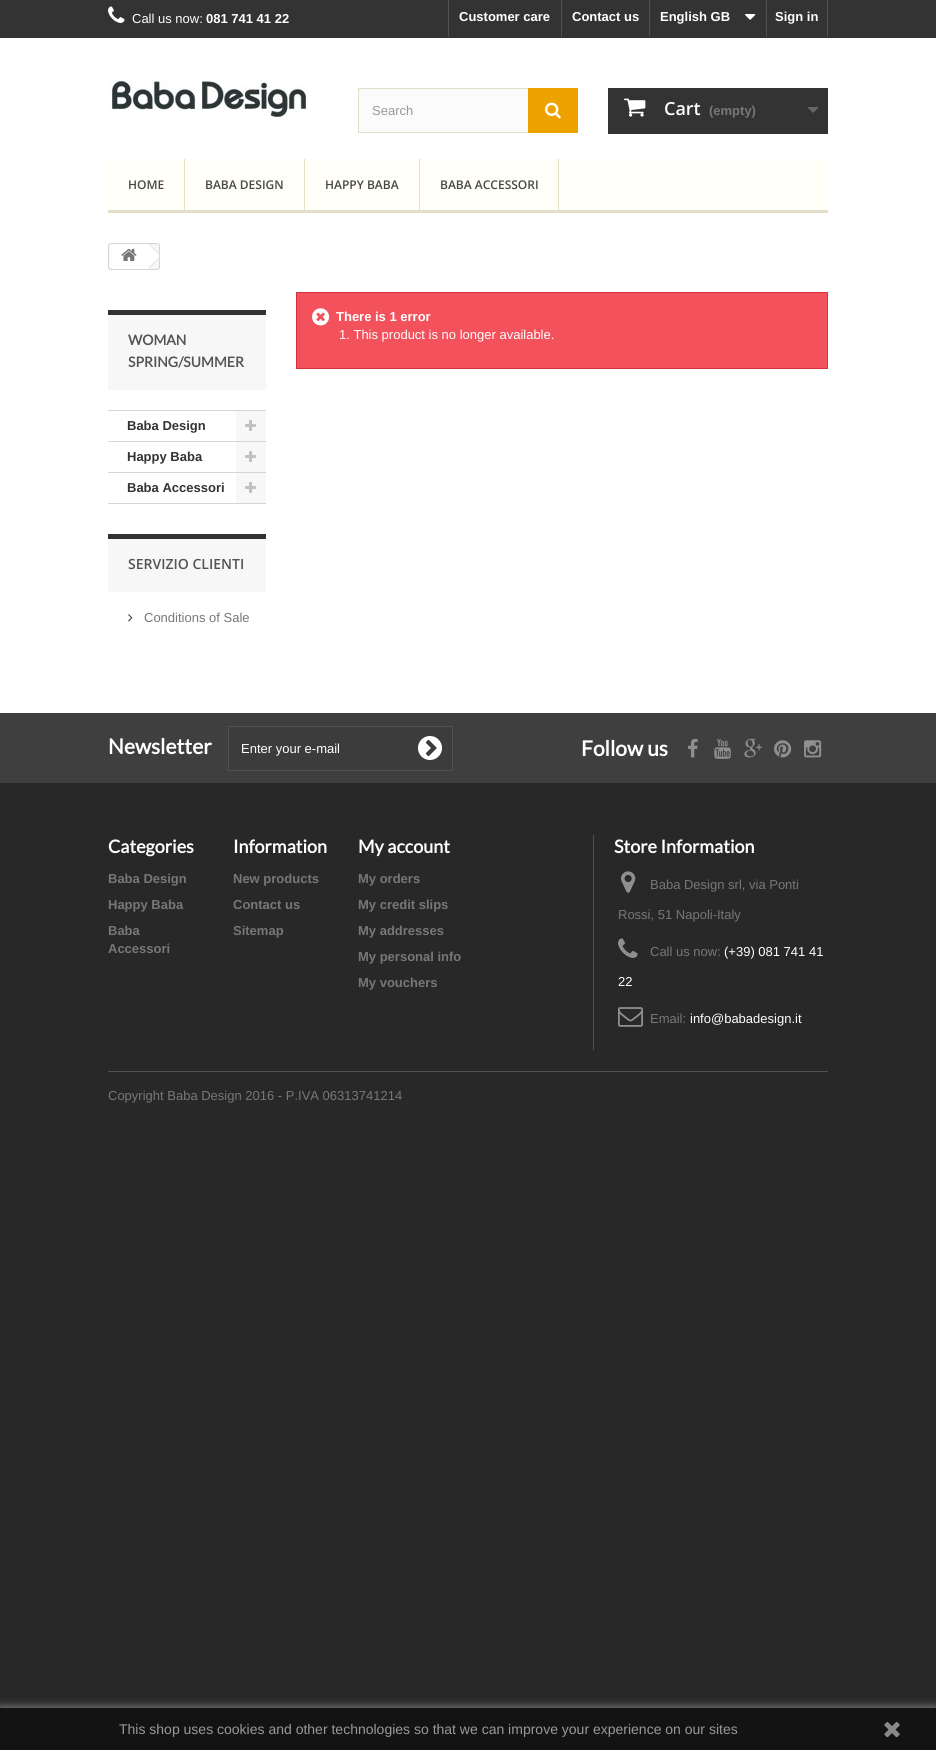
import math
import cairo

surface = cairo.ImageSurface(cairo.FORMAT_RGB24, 936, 1750)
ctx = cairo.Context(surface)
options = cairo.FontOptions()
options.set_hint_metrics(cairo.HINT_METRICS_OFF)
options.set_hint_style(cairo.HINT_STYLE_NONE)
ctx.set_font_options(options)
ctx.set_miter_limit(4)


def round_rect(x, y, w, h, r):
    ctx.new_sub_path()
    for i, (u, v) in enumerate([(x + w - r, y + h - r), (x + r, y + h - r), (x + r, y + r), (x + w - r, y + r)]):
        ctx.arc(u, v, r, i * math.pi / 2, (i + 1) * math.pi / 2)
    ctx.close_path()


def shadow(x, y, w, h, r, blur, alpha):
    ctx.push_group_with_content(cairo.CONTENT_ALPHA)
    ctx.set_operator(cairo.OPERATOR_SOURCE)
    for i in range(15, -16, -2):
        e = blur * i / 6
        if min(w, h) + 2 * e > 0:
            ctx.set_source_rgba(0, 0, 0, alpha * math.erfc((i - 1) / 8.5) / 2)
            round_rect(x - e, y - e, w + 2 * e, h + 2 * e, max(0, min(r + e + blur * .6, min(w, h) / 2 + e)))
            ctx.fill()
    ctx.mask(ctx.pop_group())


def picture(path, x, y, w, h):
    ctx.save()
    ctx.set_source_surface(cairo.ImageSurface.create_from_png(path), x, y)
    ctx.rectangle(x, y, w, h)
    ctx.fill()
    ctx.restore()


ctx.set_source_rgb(0.157, 0.157, 0.157)
ctx.paint()
ctx.set_source_rgb(1, 1, 1)
ctx.rectangle(0, 38, 936, 675)
ctx.fill()
ctx.set_source_rgb(0.2, 0.2, 0.2)
ctx.rectangle(0, 0, 936, 38)
ctx.fill()
picture("img1.png", 108, 6, 17, 17)
ctx.select_font_face("Liberation Sans")
ctx.set_font_size(13)
ctx.set_source_rgb(1, 1, 1)
ctx.move_to(132, 23)
ctx.show_text("Call us now:")
ctx.select_font_face("Liberation Sans", cairo.FONT_SLANT_NORMAL, cairo.FONT_WEIGHT_BOLD)
ctx.move_to(206, 23)
ctx.show_text("081 741 41 22")
ctx.set_source_rgb(0.318, 0.318, 0.318)
ctx.rectangle(448, 0, 1, 37)
ctx.fill()
ctx.set_source_rgb(1, 1, 1)
ctx.move_to(459, 21)
ctx.show_text("Customer care")
ctx.set_source_rgb(0.318, 0.318, 0.318)
ctx.rectangle(561, 0, 1, 37)
ctx.fill()
ctx.set_source_rgb(1, 1, 1)
ctx.move_to(572, 21)
ctx.show_text("Contact us")
ctx.set_source_rgb(0.318, 0.318, 0.318)
ctx.rectangle(649, 0, 1, 36)
ctx.fill()
ctx.set_source_rgb(1, 1, 1)
ctx.move_to(660, 21)
ctx.show_text("English GB")
picture("img2.png", 745, 14, 11, 6)
ctx.set_source_rgb(0.318, 0.318, 0.318)
ctx.rectangle(827, 0, 1, 37)
ctx.fill()
ctx.rectangle(766, 0, 1, 37)
ctx.fill()
ctx.set_source_rgb(1, 1, 1)
ctx.move_to(775, 21)
ctx.show_text("Sign in")
picture("img3.png", 108, 78, 200, 40)
ctx.set_source_rgb(0.984, 0.984, 0.984)
ctx.rectangle(359, 89, 169, 43)
ctx.fill()
ctx.rectangle(358.5, 88.5, 219, 44)
ctx.set_source_rgb(0.886, 0.871, 0.784)
ctx.set_line_width(1)
ctx.stroke()
ctx.select_font_face("Liberation Sans")
ctx.set_source_rgb(0.6, 0.6, 0.6)
ctx.move_to(372, 115)
ctx.show_text("Search")
ctx.set_source_rgb(0.933, 0.635, 0)
ctx.rectangle(528, 88, 50, 45)
ctx.fill()
picture("img4.png", 545, 102, 16, 17)
ctx.set_source_rgb(0.2, 0.2, 0.2)
ctx.rectangle(608, 88, 220, 46)
ctx.fill()
picture("img5.png", 624, 98, 22, 19)
ctx.select_font_face("Open Sans SemiBold")
ctx.set_font_size(18)
ctx.set_source_rgb(1, 1, 1)
ctx.move_to(664, 115)
ctx.show_text("Cart")
ctx.select_font_face("Liberation Sans", cairo.FONT_SLANT_NORMAL, cairo.FONT_WEIGHT_BOLD)
ctx.set_font_size(13)
ctx.set_source_rgb(0.467, 0.467, 0.467)
ctx.move_to(709, 115)
ctx.show_text("(empty)")
picture("img6.png", 808, 107, 11, 6)
ctx.set_source_rgb(1, 0.996, 0.965)
ctx.rectangle(108, 159, 720, 51)
ctx.fill()
ctx.set_source_rgb(0.886, 0.871, 0.784)
ctx.rectangle(108, 210, 720, 3)
ctx.fill()
ctx.rectangle(184, 159, 1, 54)
ctx.fill()
ctx.select_font_face("Open Sans SemiBold")
ctx.set_font_size(12)
ctx.set_source_rgb(0.282, 0.282, 0.282)
ctx.move_to(128, 189)
ctx.show_text("HOME")
ctx.set_source_rgb(0.886, 0.871, 0.784)
ctx.rectangle(304, 159, 1, 54)
ctx.fill()
ctx.set_source_rgb(0.282, 0.282, 0.282)
ctx.move_to(205, 189)
ctx.show_text("BABA DESIGN")
ctx.set_source_rgb(0.886, 0.871, 0.784)
ctx.rectangle(419, 159, 1, 54)
ctx.fill()
ctx.set_source_rgb(0.282, 0.282, 0.282)
ctx.move_to(325, 189)
ctx.show_text("HAPPY BABA")
ctx.set_source_rgb(0.886, 0.871, 0.784)
ctx.rectangle(558, 159, 1, 54)
ctx.fill()
ctx.set_source_rgb(0.282, 0.282, 0.282)
ctx.move_to(440, 189)
ctx.show_text("BABA ACCESSORI")
ctx.set_source_rgb(0.965, 0.965, 0.965)
round_rect(108.5, 243.5, 51, 26, 2.5)
ctx.fill_preserve()
ctx.set_source_rgb(0.839, 0.831, 0.831)
ctx.stroke()
ctx.set_source_rgb(1, 1, 1)
ctx.new_path()
ctx.move_to(113, 244)
ctx.line_to(148, 244)
ctx.line_to(148, 269)
ctx.line_to(113, 269)
ctx.curve_to(111.5, 269, 110, 267.5, 110, 266)
ctx.line_to(110, 247)
ctx.curve_to(110, 245.5, 111.5, 244, 113, 244)
ctx.close_path()
ctx.fill()
picture("img7.png", 121, 248, 16, 13)
ctx.new_path()
ctx.move_to(150.5, 244.5)
ctx.line_to(159, 253)
ctx.line_to(159, 259)
ctx.line_to(150.5, 267.5)
ctx.curve_to(149.5, 268, 148.5, 268, 147.5, 267.5)
ctx.line_to(137.5, 257.5)
ctx.curve_to(137, 256.5, 137, 255.5, 137.5, 254.5)
ctx.line_to(147.5, 244.5)
ctx.curve_to(148.5, 244, 149.5, 244, 150.5, 244.5)
ctx.close_path()
ctx.fill()
ctx.set_source_rgb(0.839, 0.831, 0.831)
ctx.new_path()
ctx.move_to(149.5, 244)
ctx.line_to(159, 253.5)
ctx.line_to(159, 254.5)
ctx.line_to(149, 244.5)
ctx.close_path()
ctx.move_to(159, 257.5)
ctx.line_to(159, 258.5)
ctx.line_to(149.5, 268)
ctx.line_to(149, 267.5)
ctx.close_path()
ctx.fill()
ctx.set_source_rgb(0.953, 0.318, 0.361)
ctx.rectangle(296.5, 292.5, 531, 76)
ctx.fill_preserve()
ctx.set_source_rgb(0.831, 0.196, 0.239)
ctx.stroke()
picture("img8.png", 312, 308, 18, 18)
ctx.select_font_face("Liberation Sans", cairo.FONT_SLANT_NORMAL, cairo.FONT_WEIGHT_BOLD)
ctx.set_font_size(13)
ctx.set_source_rgb(1, 1, 1)
ctx.move_to(336, 321)
ctx.show_text("There is 1 error")
ctx.select_font_face("Liberation Sans")
ctx.move_to(339, 339)
ctx.show_text("1. This product is no longer available.")
ctx.set_source_rgb(0.965, 0.965, 0.965)
ctx.rectangle(108, 315, 158, 75)
ctx.fill()
ctx.set_source_rgb(0.2, 0.2, 0.2)
ctx.rectangle(108, 310, 158, 5)
ctx.fill()
ctx.select_font_face("Lato", cairo.FONT_SLANT_NORMAL, cairo.FONT_WEIGHT_BOLD)
ctx.set_font_size(14)
ctx.set_source_rgb(0.333, 0.329, 0.329)
ctx.move_to(128, 345)
ctx.show_text("WOMAN")
ctx.move_to(128, 367)
ctx.show_text("SPRING/SUMMER")
ctx.set_source_rgb(0.839, 0.831, 0.831)
ctx.rectangle(108, 410, 158, 1)
ctx.fill()
ctx.rectangle(108, 441, 158, 1)
ctx.fill()
ctx.select_font_face("Liberation Sans", cairo.FONT_SLANT_NORMAL, cairo.FONT_WEIGHT_BOLD)
ctx.set_font_size(13)
ctx.set_source_rgb(0.2, 0.2, 0.2)
ctx.move_to(127, 430)
ctx.show_text("Baba Design")
ctx.set_source_rgb(0.965, 0.965, 0.965)
ctx.rectangle(236, 411, 30, 30)
ctx.fill()
picture("img9.png", 245, 420, 11, 11)
ctx.set_source_rgb(0.839, 0.831, 0.831)
ctx.rectangle(108, 472, 158, 1)
ctx.fill()
ctx.set_source_rgb(0.2, 0.2, 0.2)
ctx.move_to(127, 461)
ctx.show_text("Happy Baba")
ctx.set_source_rgb(0.965, 0.965, 0.965)
ctx.rectangle(236, 442, 30, 30)
ctx.fill()
picture("img9.png", 245, 451, 11, 11)
ctx.set_source_rgb(0.839, 0.831, 0.831)
ctx.rectangle(108, 503, 158, 1)
ctx.fill()
ctx.set_source_rgb(0.2, 0.2, 0.2)
ctx.move_to(127, 492)
ctx.show_text("Baba Accessori")
ctx.set_source_rgb(0.965, 0.965, 0.965)
ctx.rectangle(236, 473, 30, 30)
ctx.fill()
picture("img9.png", 245, 482, 11, 11)
ctx.rectangle(108, 539, 158, 53)
ctx.fill()
ctx.set_source_rgb(0.2, 0.2, 0.2)
ctx.rectangle(108, 534, 158, 5)
ctx.fill()
ctx.select_font_face("Open Sans SemiBold")
ctx.set_font_size(14)
ctx.set_source_rgb(0.333, 0.329, 0.329)
ctx.move_to(128, 569)
ctx.show_text("SERVIZIO CLIENTI")
picture("img10.png", 128, 614, 5, 8)
ctx.select_font_face("Liberation Sans")
ctx.set_font_size(13)
ctx.set_source_rgb(0.467, 0.467, 0.467)
ctx.move_to(144, 622)
ctx.show_text("Conditions of Sale")
ctx.set_source_rgb(0.247, 0.247, 0.247)
ctx.rectangle(0, 713, 936, 70)
ctx.fill()
ctx.select_font_face("Lato", cairo.FONT_SLANT_NORMAL, cairo.FONT_WEIGHT_BOLD)
ctx.set_font_size(21)
ctx.set_source_rgb(1, 1, 1)
ctx.move_to(108, 754)
ctx.show_text("Newsletter")
ctx.set_source_rgb(0.235, 0.235, 0.235)
ctx.rectangle(228.5, 726.5, 224, 44)
ctx.fill_preserve()
ctx.set_source_rgb(0.318, 0.318, 0.318)
ctx.stroke()
ctx.select_font_face("Liberation Sans")
ctx.set_font_size(13)
ctx.set_source_rgb(1, 1, 1)
ctx.move_to(241, 753)
ctx.show_text("Enter your e-mail")
picture("img11.png", 418, 736, 24, 24)
ctx.select_font_face("Lato", cairo.FONT_SLANT_NORMAL, cairo.FONT_WEIGHT_BOLD)
ctx.set_font_size(21)
ctx.move_to(581, 756)
ctx.show_text("Follow us")
picture("img12.png", 688, 738, 10, 20)
picture("img13.png", 714, 738, 17, 21)
picture("img14.png", 744, 738, 18, 20)
picture("img15.png", 774, 740, 18, 18)
picture("img16.png", 804, 740, 18, 18)
ctx.set_font_size(18)
ctx.move_to(108, 853)
ctx.show_text("Categories")
ctx.select_font_face("Liberation Sans", cairo.FONT_SLANT_NORMAL, cairo.FONT_WEIGHT_BOLD)
ctx.set_font_size(13)
ctx.set_source_rgb(0.467, 0.467, 0.467)
ctx.move_to(108, 883)
ctx.show_text("Baba Design")
ctx.move_to(108, 909)
ctx.show_text("Happy Baba")
ctx.move_to(108, 935)
ctx.show_text("Baba")
ctx.move_to(108, 953)
ctx.show_text("Accessori")
ctx.select_font_face("Lato", cairo.FONT_SLANT_NORMAL, cairo.FONT_WEIGHT_BOLD)
ctx.set_font_size(18)
ctx.set_source_rgb(1, 1, 1)
ctx.move_to(233, 853)
ctx.show_text("Information")
ctx.select_font_face("Liberation Sans", cairo.FONT_SLANT_NORMAL, cairo.FONT_WEIGHT_BOLD)
ctx.set_font_size(13)
ctx.set_source_rgb(0.467, 0.467, 0.467)
ctx.move_to(233, 883)
ctx.show_text("New products")
ctx.move_to(233, 909)
ctx.show_text("Contact us")
ctx.move_to(233, 935)
ctx.show_text("Sitemap")
ctx.select_font_face("Lato", cairo.FONT_SLANT_NORMAL, cairo.FONT_WEIGHT_BOLD)
ctx.set_font_size(18)
ctx.set_source_rgb(1, 1, 1)
ctx.move_to(358, 853)
ctx.show_text("My account")
ctx.select_font_face("Liberation Sans", cairo.FONT_SLANT_NORMAL, cairo.FONT_WEIGHT_BOLD)
ctx.set_font_size(13)
ctx.set_source_rgb(0.467, 0.467, 0.467)
ctx.move_to(358, 883)
ctx.show_text("My orders")
ctx.move_to(358, 909)
ctx.show_text("My credit slips")
ctx.move_to(358, 935)
ctx.show_text("My addresses")
ctx.move_to(358, 961)
ctx.show_text("My personal info")
ctx.move_to(358, 987)
ctx.show_text("My vouchers")
ctx.set_source_rgb(0.318, 0.318, 0.318)
ctx.rectangle(593, 835, 1, 215)
ctx.fill()
ctx.select_font_face("Lato", cairo.FONT_SLANT_NORMAL, cairo.FONT_WEIGHT_BOLD)
ctx.set_font_size(18)
ctx.set_source_rgb(1, 1, 1)
ctx.move_to(614, 853)
ctx.show_text("Store Information")
picture("img17.png", 621, 871, 15, 22)
ctx.select_font_face("Liberation Sans")
ctx.set_font_size(13)
ctx.set_source_rgb(0.467, 0.467, 0.467)
ctx.move_to(650, 889)
ctx.show_text("Baba Design srl, via Ponti")
ctx.move_to(618, 919)
ctx.show_text("Rossi, 51 Napoli-Italy")
picture("img18.png", 618, 938, 20, 20)
ctx.move_to(650, 956)
ctx.show_text("Call us now:")
ctx.set_source_rgb(1, 1, 1)
ctx.move_to(724, 956)
ctx.show_text("(+39) 081 741 41")
ctx.move_to(618, 986)
ctx.show_text("22")
picture("img19.png", 618, 1007, 25, 20)
ctx.set_source_rgb(0.467, 0.467, 0.467)
ctx.move_to(650, 1023)
ctx.show_text("Email:")
ctx.set_source_rgb(1, 1, 1)
ctx.move_to(690, 1023)
ctx.show_text("info@babadesign.it")
ctx.set_source_rgb(0.318, 0.318, 0.318)
ctx.rectangle(108, 1071, 720, 1)
ctx.fill()
ctx.set_source_rgb(0.467, 0.467, 0.467)
ctx.move_to(108, 1100)
ctx.show_text("Copyright Baba Design 2016 - P.IVA 06313741214")
ctx.set_source_rgb(0.58, 0.58, 0.58)
shadow(0, 1708, 936, 42, 0, 5, 1)
ctx.set_source_rgb(0.078, 0.078, 0.078)
ctx.rectangle(0, 1708, 936, 42)
ctx.fill()
ctx.set_font_size(14)
ctx.set_source_rgb(0.6, 0.6, 0.6)
ctx.move_to(119, 1734)
ctx.show_text("This shop uses cookies and other technologies so that we can improve your experience on our sites")
picture("img20.png", 884, 1722, 16, 16)
surface.write_to_png("page.png")
